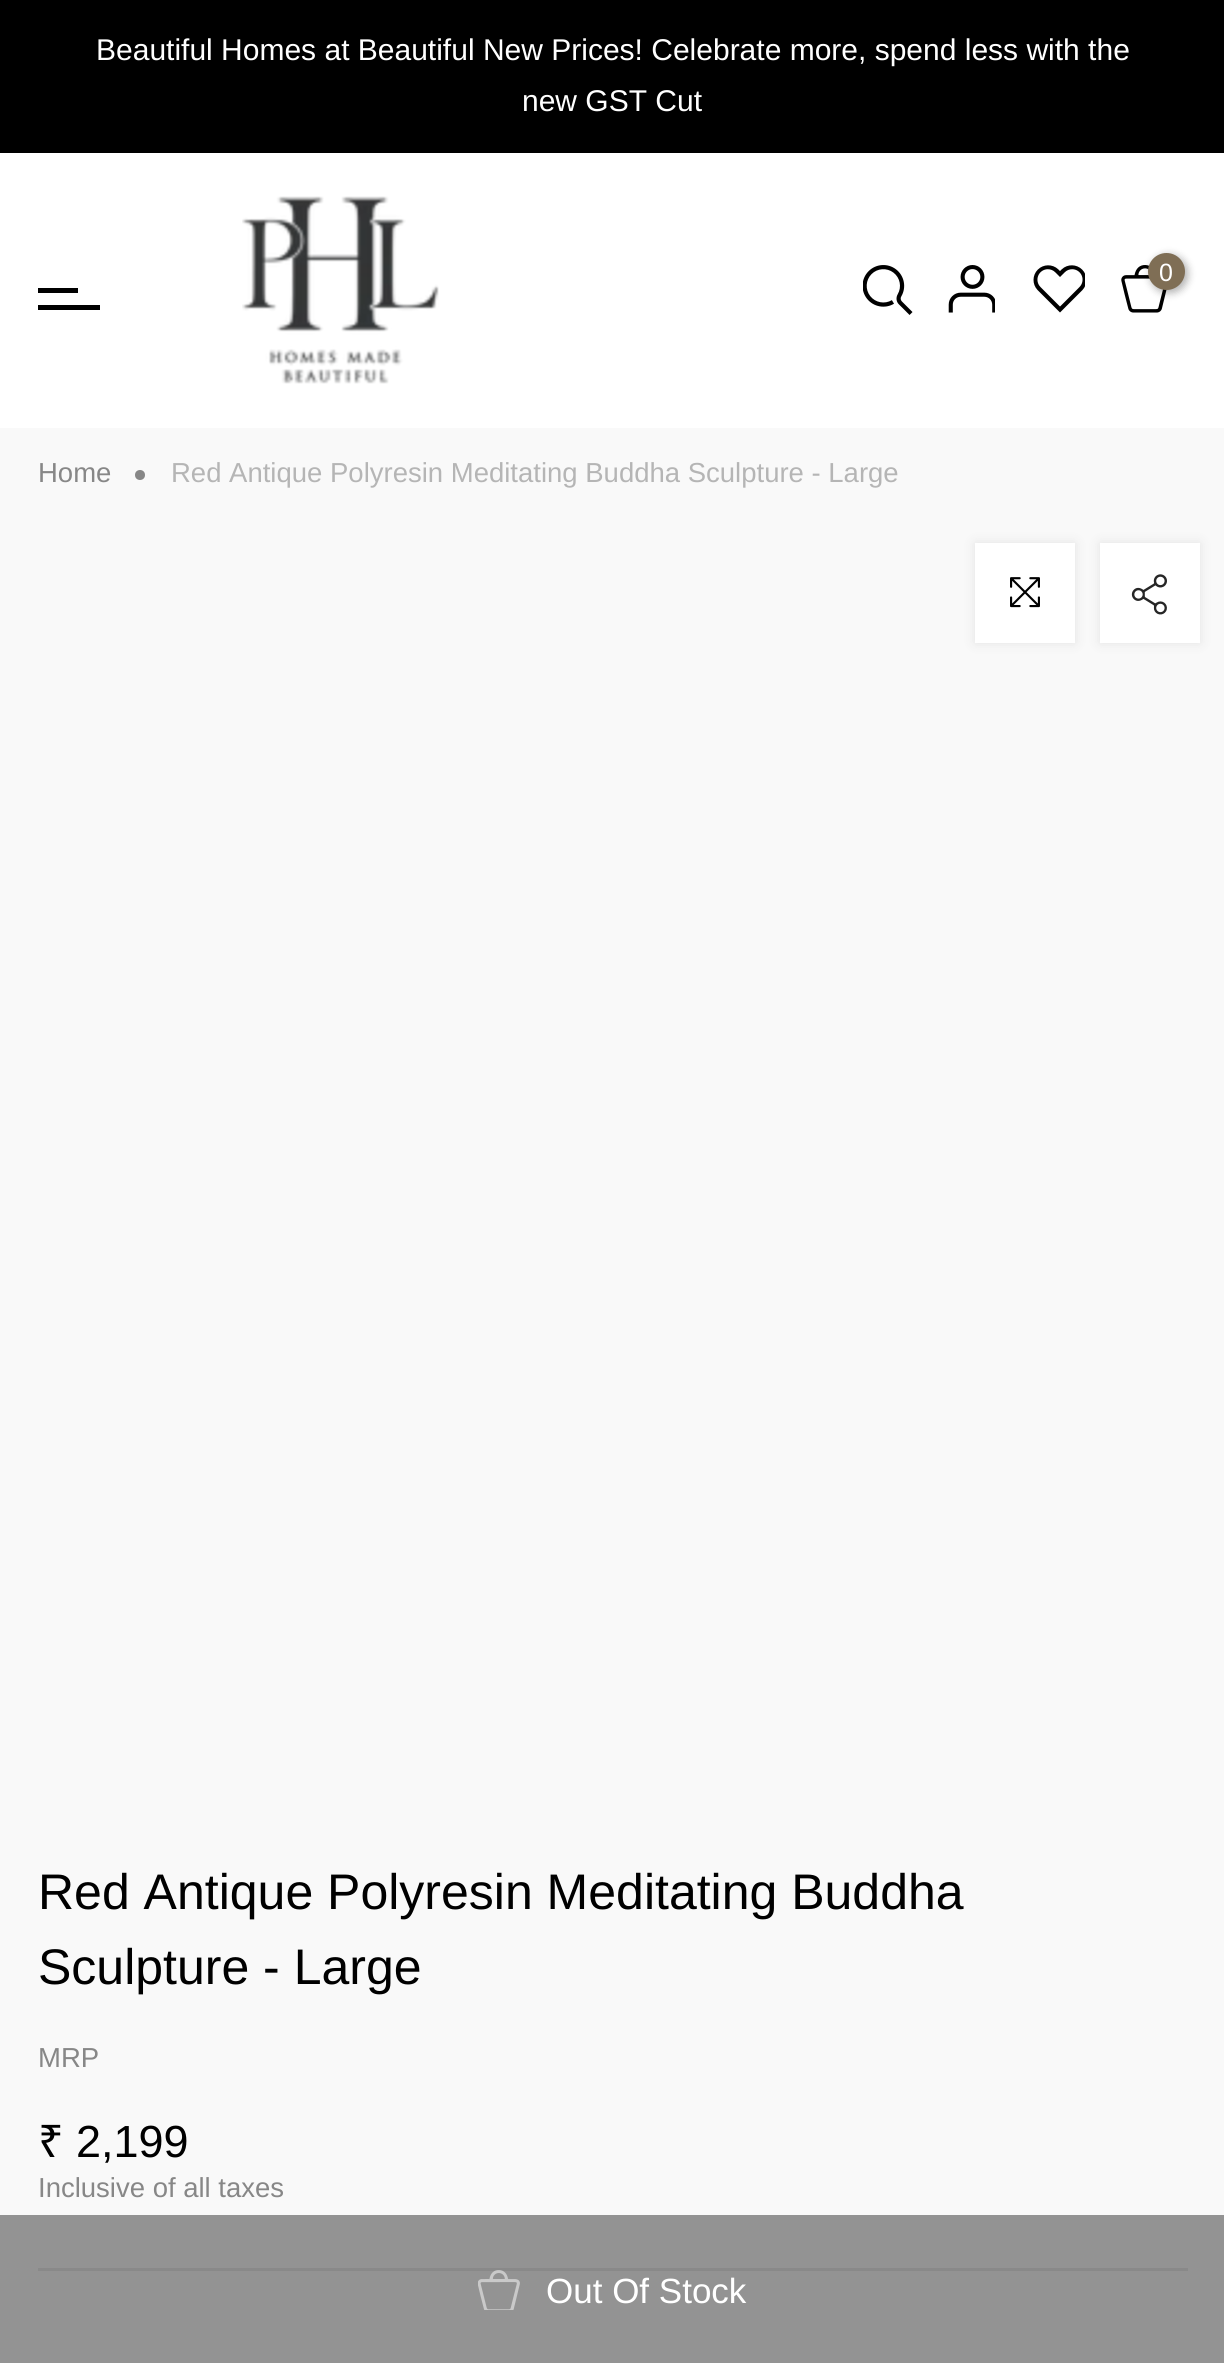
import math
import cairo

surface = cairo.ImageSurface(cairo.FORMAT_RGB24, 1224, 2363)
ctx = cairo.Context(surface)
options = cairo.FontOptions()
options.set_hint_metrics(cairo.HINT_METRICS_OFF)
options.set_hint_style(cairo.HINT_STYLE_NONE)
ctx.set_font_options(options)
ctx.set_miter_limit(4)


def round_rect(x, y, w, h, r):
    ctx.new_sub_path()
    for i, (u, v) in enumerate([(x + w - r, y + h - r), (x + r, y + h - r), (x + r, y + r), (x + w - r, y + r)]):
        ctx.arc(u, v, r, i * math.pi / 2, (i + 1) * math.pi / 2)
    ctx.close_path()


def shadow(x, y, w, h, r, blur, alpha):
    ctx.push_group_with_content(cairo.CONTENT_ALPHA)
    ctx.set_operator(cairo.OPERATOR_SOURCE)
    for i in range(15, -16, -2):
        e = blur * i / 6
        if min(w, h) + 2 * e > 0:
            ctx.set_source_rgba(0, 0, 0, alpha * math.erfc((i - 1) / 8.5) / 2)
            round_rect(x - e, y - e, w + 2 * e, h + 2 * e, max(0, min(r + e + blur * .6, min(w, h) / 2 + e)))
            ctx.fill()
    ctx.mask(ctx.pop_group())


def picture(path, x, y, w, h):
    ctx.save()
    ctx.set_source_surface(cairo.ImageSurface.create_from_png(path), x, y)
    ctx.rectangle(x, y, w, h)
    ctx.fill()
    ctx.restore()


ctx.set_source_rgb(1, 1, 1)
ctx.paint()
ctx.set_source_rgb(0, 0, 0)
ctx.rectangle(0, 0, 1224, 153)
ctx.fill()
ctx.select_font_face("Liberation Sans")
ctx.set_font_size(30)
ctx.set_source_rgb(1, 1, 1)
ctx.move_to(96, 60)
ctx.show_text("Beautiful Homes at Beautiful New Prices! Celebrate more, spend less with the")
ctx.move_to(522, 111)
ctx.show_text("new GST Cut")
picture("img1.png", 242, 196, 197, 188)
picture("img2.png", 863, 265, 50, 50)
picture("img3.png", 948, 265, 47, 48)
picture("img4.png", 1033, 265, 52, 48)
picture("img5.png", 1121, 265, 46, 48)
ctx.set_source_rgb(0, 0, 0)
shadow(1150, 255, 38, 38, 19, 4, 0.3)
ctx.set_source_rgb(0.498, 0.431, 0.333)
ctx.arc(1166.5, 271.5, 18.5, 0, 2 * math.pi)
ctx.fill()
ctx.set_font_size(25)
ctx.set_source_rgb(1, 1, 1)
ctx.move_to(1159, 281)
ctx.show_text("0")
ctx.set_source_rgb(0, 0, 0)
ctx.rectangle(38, 288, 40, 5)
ctx.fill()
ctx.rectangle(38, 305, 62, 5)
ctx.fill()
ctx.set_source_rgb(0.976, 0.976, 0.976)
ctx.rectangle(0, 428, 1224, 1787)
ctx.fill()
ctx.set_font_size(27.5)
ctx.set_source_rgb(0.529, 0.529, 0.529)
ctx.move_to(38, 482)
ctx.show_text("Home")
ctx.new_path()
ctx.arc(140, 475, 5, 0, 2 * math.pi)
ctx.fill()
ctx.set_source_rgb(0.71, 0.71, 0.71)
ctx.move_to(171, 482)
ctx.show_text("Red Antique Polyresin Meditating Buddha Sculpture - Large")
ctx.set_source_rgb(0.576, 0.576, 0.576)
ctx.rectangle(0, 2215, 1224, 148)
ctx.fill()
ctx.set_source_rgb(0, 0, 0)
shadow(975, 543, 100, 100, 0, 6, 0.09)
ctx.set_source_rgb(1, 1, 1)
ctx.rectangle(975, 543, 100, 100)
ctx.fill()
picture("img6.png", 1010, 577, 30, 31)
ctx.set_source_rgb(0, 0, 0)
shadow(1100, 543, 100, 100, 0, 6, 0.09)
ctx.set_source_rgb(1, 1, 1)
ctx.rectangle(1100, 543, 100, 100)
ctx.fill()
picture("img7.png", 1131, 574, 36, 41)
ctx.set_font_size(50)
ctx.set_source_rgb(0, 0, 0)
ctx.move_to(38, 1909)
ctx.show_text("Red Antique Polyresin Meditating Buddha")
ctx.move_to(38, 1984)
ctx.show_text("Sculpture - Large")
ctx.set_source_rgb(0.537, 0.537, 0.537)
ctx.rectangle(38, 2268, 1150, 3)
ctx.fill()
ctx.set_font_size(27.5)
ctx.set_source_rgb(0.529, 0.529, 0.529)
ctx.move_to(38, 2067)
ctx.show_text("MRP")
ctx.select_font_face("Noto Sans")
ctx.set_font_size(45)
ctx.set_source_rgb(0, 0, 0)
ctx.move_to(38, 2157)
ctx.show_text("₹")
ctx.select_font_face("Liberation Sans")
ctx.move_to(76, 2157)
ctx.show_text("2,199")
ctx.set_font_size(27.5)
ctx.set_source_rgb(0.529, 0.529, 0.529)
ctx.move_to(38, 2197)
ctx.show_text("Inclusive of all taxes")
picture("img8.png", 478, 2270, 42, 40)
ctx.set_font_size(35)
ctx.set_source_rgb(1, 1, 1)
ctx.move_to(546, 2303)
ctx.show_text("Out Of Stock")
surface.write_to_png("page.png")
